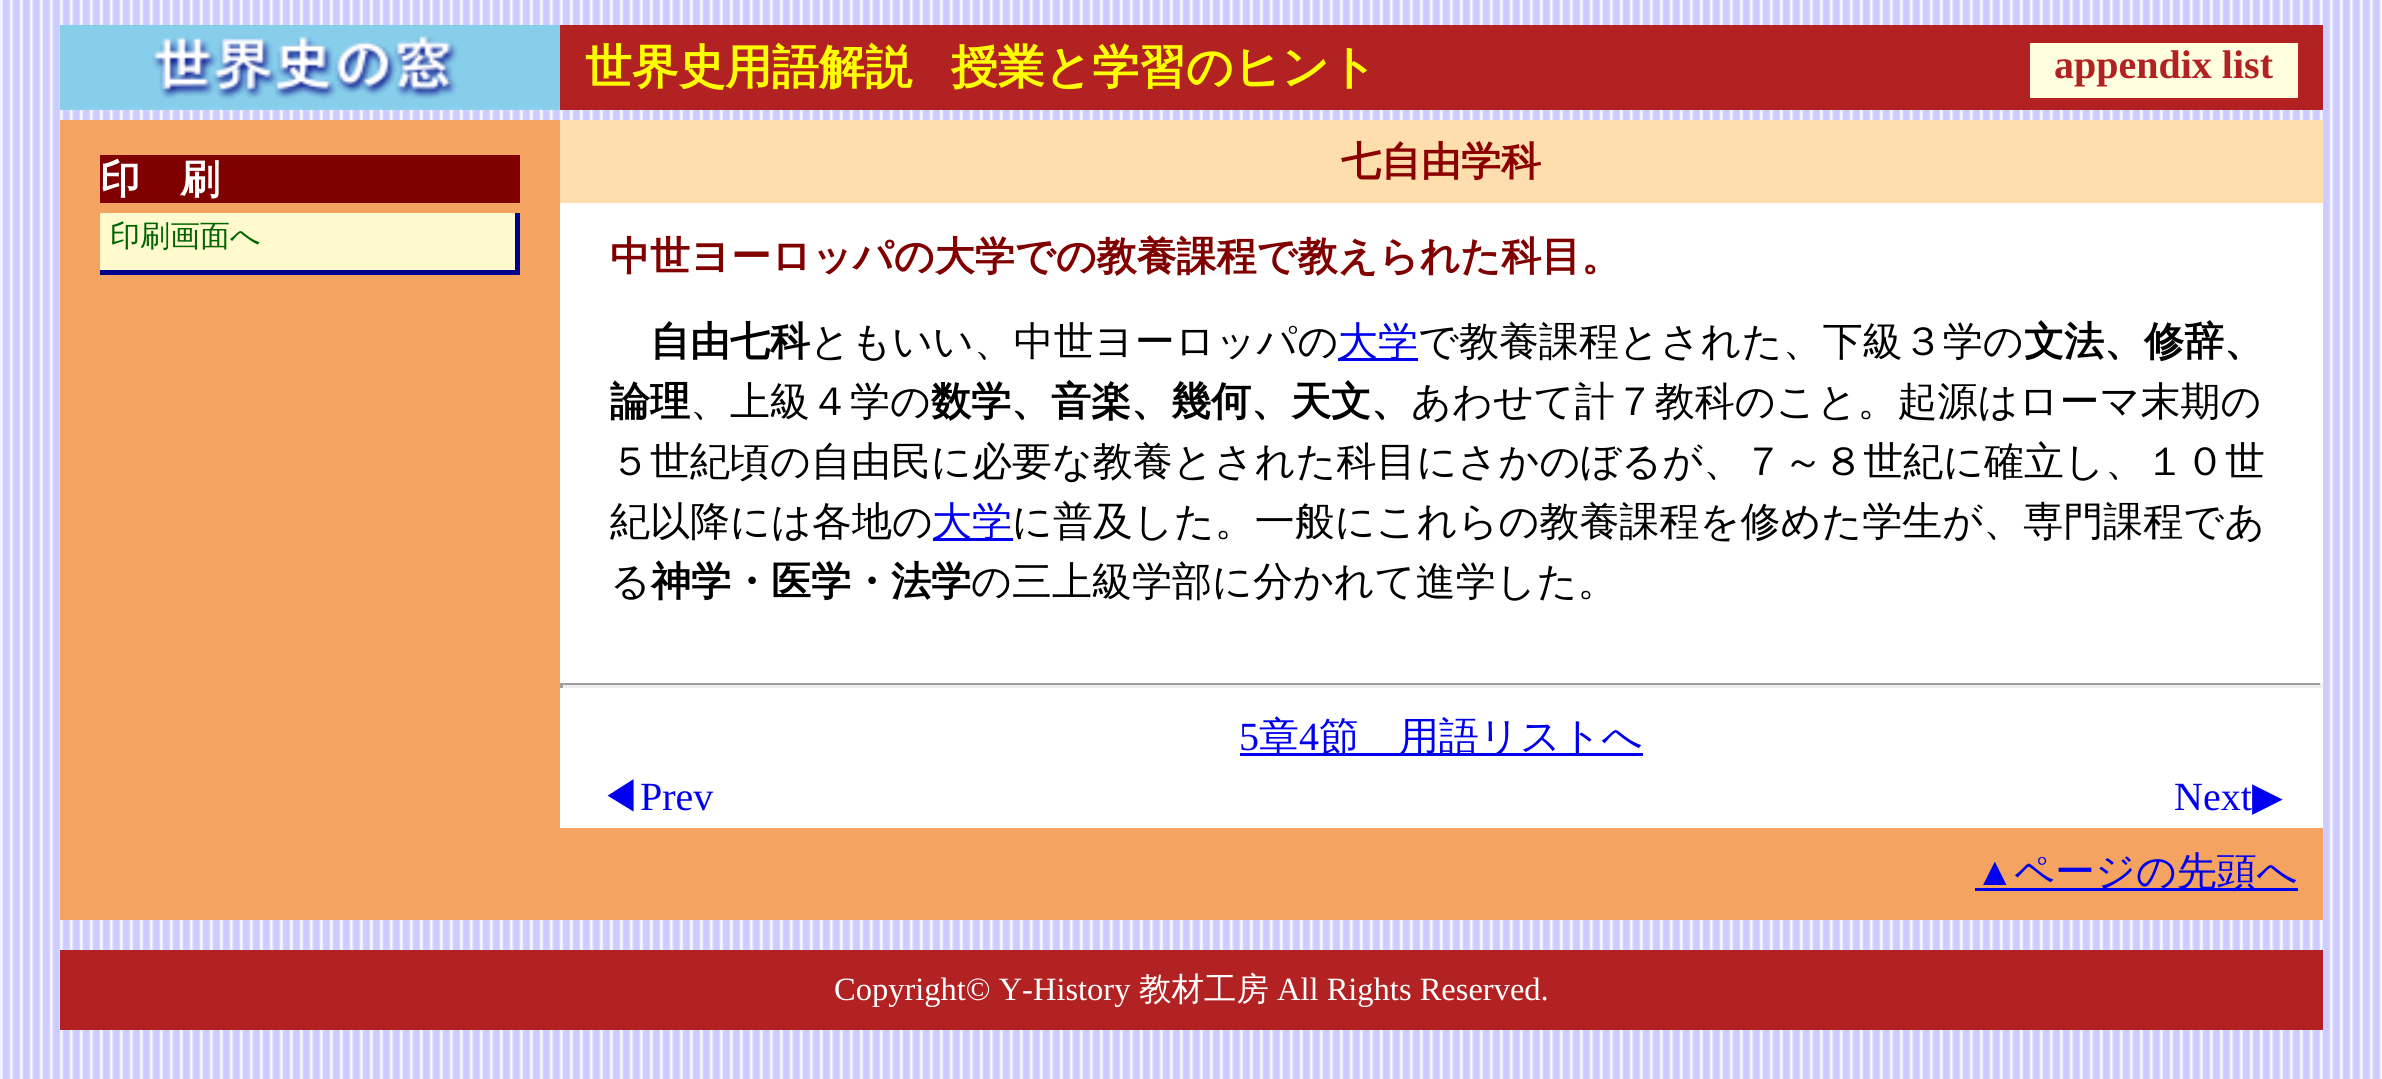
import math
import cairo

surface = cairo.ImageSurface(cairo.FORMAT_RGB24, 2382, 1079)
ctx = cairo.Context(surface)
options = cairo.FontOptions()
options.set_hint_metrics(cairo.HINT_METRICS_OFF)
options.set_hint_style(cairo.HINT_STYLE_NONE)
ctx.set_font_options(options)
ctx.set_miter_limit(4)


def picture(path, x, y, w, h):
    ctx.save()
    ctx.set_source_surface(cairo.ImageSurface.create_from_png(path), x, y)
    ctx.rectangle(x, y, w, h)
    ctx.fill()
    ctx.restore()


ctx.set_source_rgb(1, 1, 1)
ctx.paint()
picture("img1.png", 0, 0, 2381, 1079)
ctx.set_source_rgb(0.698, 0.133, 0.133)
ctx.rectangle(560, 25, 1763, 85)
ctx.fill()
picture("img2.png", 60, 25, 500, 85)
ctx.select_font_face("WenQuanYi Zen Hei", cairo.FONT_SLANT_NORMAL, cairo.FONT_WEIGHT_BOLD)
ctx.set_font_size(46.75)
ctx.set_source_rgb(1, 1, 0)
ctx.move_to(585, 83)
ctx.show_text("世界史用語解説")
ctx.move_to(951, 83)
ctx.show_text("授業と学習のヒント")
ctx.set_source_rgb(1, 1, 0.878)
ctx.rectangle(2030, 43, 268, 55)
ctx.fill()
ctx.select_font_face("Liberation Serif", cairo.FONT_SLANT_NORMAL, cairo.FONT_WEIGHT_BOLD)
ctx.set_font_size(40)
ctx.set_source_rgb(0.698, 0.133, 0.133)
ctx.move_to(2054, 78)
ctx.show_text("appendix list")
ctx.set_source_rgb(0.957, 0.643, 0.376)
ctx.rectangle(60, 120, 2263, 800)
ctx.fill()
ctx.set_source_rgb(0.502, 0, 0)
ctx.rectangle(100, 155, 420, 48)
ctx.fill()
ctx.select_font_face("WenQuanYi Zen Hei", cairo.FONT_SLANT_NORMAL, cairo.FONT_WEIGHT_BOLD)
ctx.set_source_rgb(1, 1, 1)
ctx.move_to(100, 193)
ctx.show_text("印　刷")
ctx.set_source_rgb(1, 0.98, 0.804)
ctx.rectangle(100, 213, 415, 57)
ctx.fill()
ctx.set_source_rgb(0, 0, 0.545)
ctx.rectangle(515, 213, 5, 62)
ctx.fill()
ctx.rectangle(100, 270, 420, 5)
ctx.fill()
ctx.select_font_face("WenQuanYi Zen Hei Medium")
ctx.set_font_size(30)
ctx.set_source_rgb(0, 0.392, 0)
ctx.move_to(110, 246)
ctx.show_text("印刷画面へ")
ctx.set_source_rgb(1, 1, 1)
ctx.rectangle(560, 203, 1763, 625)
ctx.fill()
ctx.set_source_rgb(1, 0.871, 0.678)
ctx.rectangle(560, 120, 1763, 83)
ctx.fill()
ctx.select_font_face("WenQuanYi Zen Hei", cairo.FONT_SLANT_NORMAL, cairo.FONT_WEIGHT_BOLD)
ctx.set_font_size(40)
ctx.set_source_rgb(0.545, 0, 0)
ctx.move_to(1341, 175)
ctx.show_text("七自由学科")
ctx.set_source_rgb(0.502, 0, 0)
ctx.move_to(610, 270)
ctx.show_text("中世ヨーロッパの大学での教養課程で教えられた科目。")
ctx.set_source_rgb(0, 0, 0)
ctx.move_to(650, 355)
ctx.show_text("自由七科")
ctx.select_font_face("WenQuanYi Zen Hei Medium")
ctx.move_to(810, 355)
ctx.show_text("ともいい、中世ヨーロッパの")
ctx.set_source_rgb(0, 0, 0.933)
ctx.rectangle(1338, 358, 80, 3)
ctx.fill()
ctx.move_to(1338, 355)
ctx.show_text("大学")
ctx.set_source_rgb(0, 0, 0)
ctx.move_to(1418, 355)
ctx.show_text("で教養課程とされた、下級３学の")
ctx.select_font_face("WenQuanYi Zen Hei", cairo.FONT_SLANT_NORMAL, cairo.FONT_WEIGHT_BOLD)
ctx.move_to(2024, 355)
ctx.show_text("文法、修辞、")
ctx.move_to(610, 415)
ctx.show_text("論理")
ctx.select_font_face("WenQuanYi Zen Hei Medium")
ctx.move_to(690, 415)
ctx.show_text("、上級４学の")
ctx.select_font_face("WenQuanYi Zen Hei", cairo.FONT_SLANT_NORMAL, cairo.FONT_WEIGHT_BOLD)
ctx.move_to(931, 415)
ctx.show_text("数学、音楽、幾何、天文、")
ctx.select_font_face("WenQuanYi Zen Hei Medium")
ctx.move_to(1411, 415)
ctx.show_text("あわせて計７教科のこと。起源はローマ末期の")
ctx.move_to(610, 475)
ctx.show_text("５世紀頃の自由民に必要な教養とされた科目にさかのぼるが、７～８世紀に確立し、１０世")
ctx.move_to(610, 535)
ctx.show_text("紀以降には各地の")
ctx.set_source_rgb(0, 0, 0.933)
ctx.rectangle(933, 538, 80, 3)
ctx.fill()
ctx.move_to(932, 535)
ctx.show_text("大学")
ctx.set_source_rgb(0, 0, 0)
ctx.move_to(1012, 535)
ctx.show_text("に普及した。一般にこれらの教養課程を修めた学生が、専門課程であ")
ctx.move_to(610, 595)
ctx.show_text("る")
ctx.select_font_face("WenQuanYi Zen Hei", cairo.FONT_SLANT_NORMAL, cairo.FONT_WEIGHT_BOLD)
ctx.move_to(651, 595)
ctx.show_text("神学・医学・法学")
ctx.select_font_face("WenQuanYi Zen Hei Medium")
ctx.move_to(971, 595)
ctx.show_text("の三上級学部に分かれて進学した。")
ctx.set_source_rgb(0.624, 0.624, 0.624)
ctx.rectangle(560, 683, 1763, 2)
ctx.fill()
ctx.set_source_rgb(0.933, 0.933, 0.933)
ctx.rectangle(2320, 683, 3, 5)
ctx.fill()
ctx.rectangle(560, 685, 1763, 3)
ctx.fill()
ctx.set_source_rgb(0.624, 0.624, 0.624)
ctx.rectangle(560, 683, 3, 5)
ctx.fill()
ctx.select_font_face("Liberation Serif")
ctx.set_source_rgb(0, 0, 0.933)
ctx.move_to(1239, 750)
ctx.show_text("5")
ctx.rectangle(1240, 753, 403, 3)
ctx.fill()
ctx.select_font_face("WenQuanYi Zen Hei Medium")
ctx.move_to(1259, 750)
ctx.show_text("章")
ctx.select_font_face("Liberation Serif")
ctx.move_to(1299, 750)
ctx.show_text("4")
ctx.select_font_face("WenQuanYi Zen Hei Medium")
ctx.move_to(1319, 750)
ctx.show_text("節　用語リストへ")
ctx.move_to(600, 810)
ctx.show_text("◀")
ctx.select_font_face("Liberation Serif")
ctx.move_to(640, 810)
ctx.show_text("Prev")
ctx.move_to(2174, 810)
ctx.show_text("Next")
ctx.select_font_face("DejaVu Sans")
ctx.move_to(2252, 810)
ctx.show_text("▶")
ctx.select_font_face("Liberation Serif")
ctx.move_to(1975, 885)
ctx.show_text("▲")
ctx.rectangle(1975, 888, 323, 3)
ctx.fill()
ctx.select_font_face("WenQuanYi Zen Hei Medium")
ctx.move_to(2014, 885)
ctx.show_text("ページの先頭へ")
ctx.set_source_rgb(0.698, 0.133, 0.133)
ctx.rectangle(60, 950, 2263, 80)
ctx.fill()
ctx.select_font_face("Liberation Serif")
ctx.set_font_size(32.5)
ctx.set_source_rgb(1, 1, 1)
ctx.move_to(834, 1000)
ctx.show_text("Copyright© Y-History")
ctx.select_font_face("WenQuanYi Zen Hei Medium")
ctx.move_to(1139, 1000)
ctx.show_text("教材工房")
ctx.select_font_face("Liberation Serif")
ctx.move_to(1277, 1000)
ctx.show_text("All Rights Reserved.")
surface.write_to_png("page.png")
